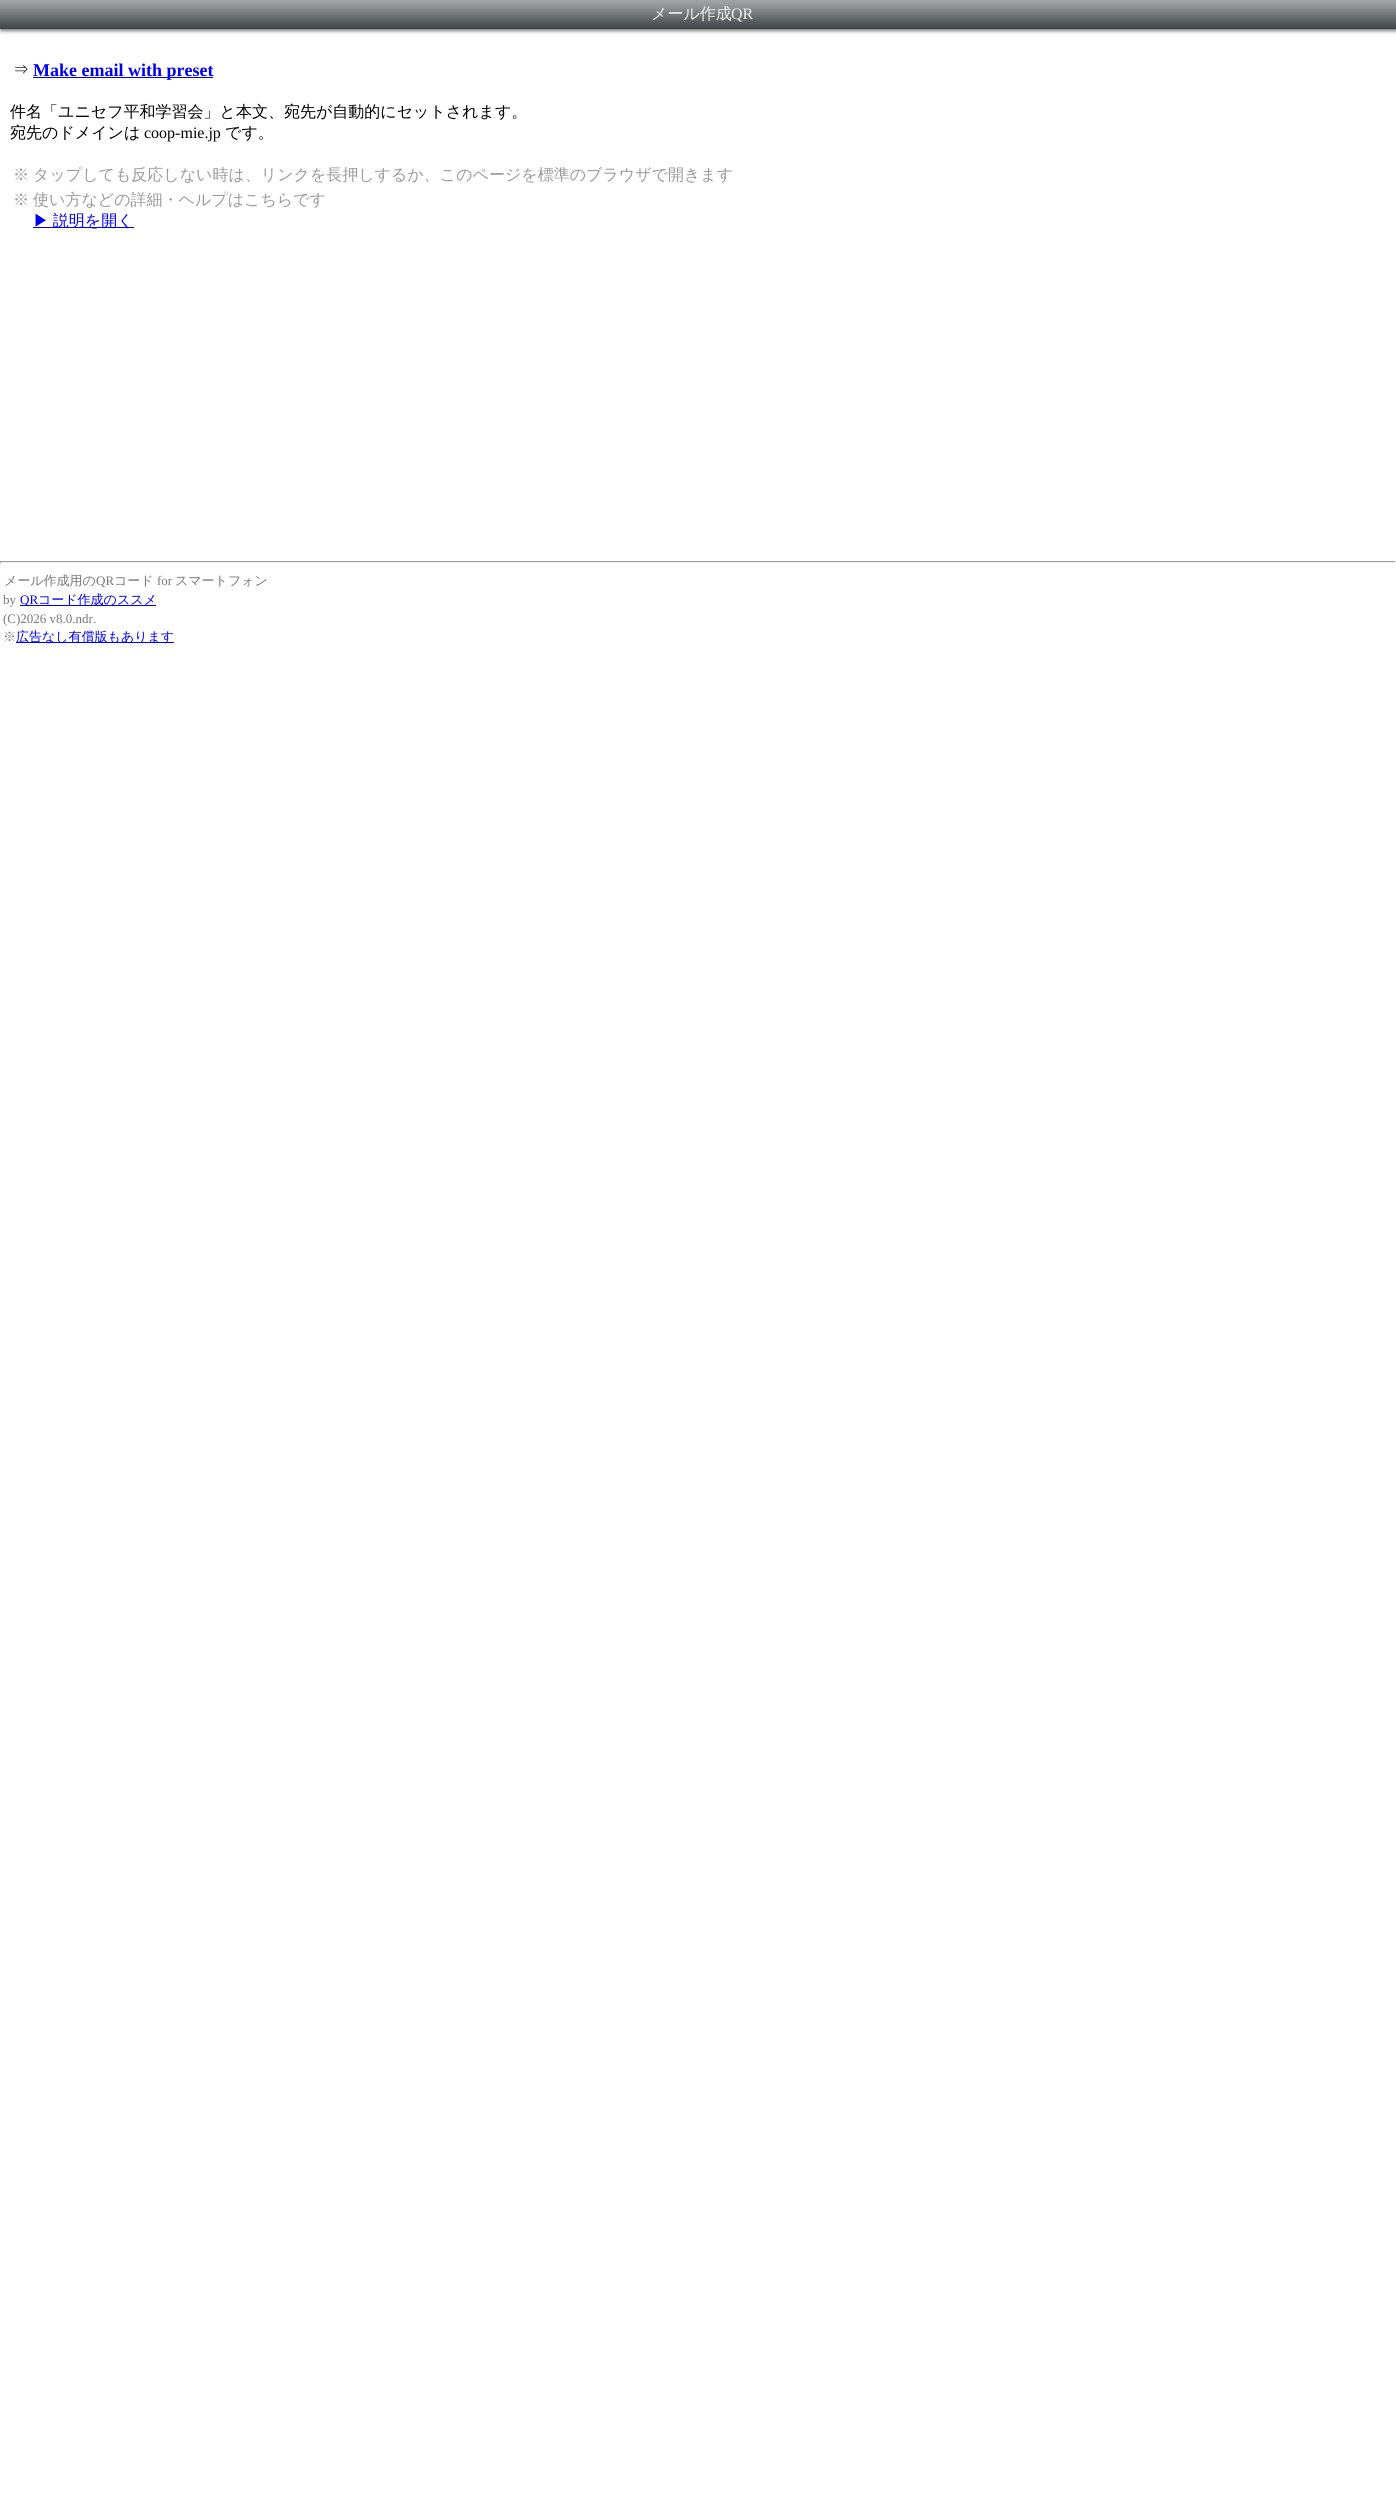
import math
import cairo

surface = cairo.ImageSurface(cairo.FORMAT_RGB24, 1396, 2502)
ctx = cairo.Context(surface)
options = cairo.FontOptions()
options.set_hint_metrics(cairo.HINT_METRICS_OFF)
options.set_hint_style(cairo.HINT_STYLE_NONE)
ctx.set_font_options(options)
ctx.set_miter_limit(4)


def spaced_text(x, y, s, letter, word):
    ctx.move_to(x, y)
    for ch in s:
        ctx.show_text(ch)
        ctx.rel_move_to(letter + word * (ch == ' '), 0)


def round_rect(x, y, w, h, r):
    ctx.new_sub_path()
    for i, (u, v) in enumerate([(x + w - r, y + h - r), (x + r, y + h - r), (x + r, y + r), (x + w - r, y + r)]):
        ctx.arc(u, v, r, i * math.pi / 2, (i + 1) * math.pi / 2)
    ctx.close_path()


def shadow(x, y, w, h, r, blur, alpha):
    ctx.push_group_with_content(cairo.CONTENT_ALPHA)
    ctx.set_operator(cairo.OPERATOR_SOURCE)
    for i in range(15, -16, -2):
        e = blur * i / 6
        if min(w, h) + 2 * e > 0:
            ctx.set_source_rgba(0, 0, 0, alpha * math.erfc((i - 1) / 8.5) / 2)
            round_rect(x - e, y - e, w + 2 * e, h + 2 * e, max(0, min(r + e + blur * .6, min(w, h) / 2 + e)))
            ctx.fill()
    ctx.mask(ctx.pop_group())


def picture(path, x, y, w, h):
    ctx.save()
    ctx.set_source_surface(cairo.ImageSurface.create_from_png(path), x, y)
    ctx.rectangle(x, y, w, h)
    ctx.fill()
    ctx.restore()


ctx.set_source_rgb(1, 1, 1)
ctx.paint()
ctx.set_source_rgb(0.251, 0.267, 0.282)
shadow(1, 1, 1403, 29, 0, 2.5, 1)
ctx.set_source_rgb(0.251, 0.267, 0.282)
ctx.rectangle(0, 0, 1396, 29)
ctx.fill()
picture("img1.png", 0, 0, 1396, 28)
ctx.select_font_face("WenQuanYi Zen Hei Medium")
ctx.set_font_size(16)
ctx.set_source_rgb(0.933, 0.933, 0.933)
ctx.move_to(651, 19)
ctx.show_text("メール作成")
ctx.select_font_face("Liberation Serif")
ctx.move_to(731, 19)
ctx.show_text("QR")
ctx.select_font_face("WenQuanYi Zen Hei Medium")
ctx.set_source_rgb(0, 0, 0)
ctx.move_to(13, 75)
ctx.show_text("⇒")
ctx.set_source_rgb(0, 0, 0.933)
ctx.rectangle(33, 77, 180, 1)
ctx.fill()
ctx.select_font_face("Liberation Serif", cairo.FONT_SLANT_NORMAL, cairo.FONT_WEIGHT_BOLD)
ctx.set_font_size(18)
ctx.move_to(33, 76)
ctx.show_text("Make email with preset")
ctx.select_font_face("WenQuanYi Zen Hei Medium")
ctx.set_font_size(16)
ctx.set_source_rgb(0, 0, 0)
ctx.move_to(10, 117)
ctx.show_text("件名「ユニセフ平和学習会」と本文、宛先が自動的にセットされます。")
ctx.move_to(10, 138)
ctx.show_text("宛先のドメインは")
ctx.select_font_face("Liberation Serif")
ctx.move_to(144, 138)
ctx.show_text("coop-mie.jp")
ctx.select_font_face("WenQuanYi Zen Hei Medium")
ctx.move_to(225, 138)
ctx.show_text("です。")
ctx.set_source_rgb(0.6, 0.6, 0.6)
ctx.move_to(13, 180)
ctx.show_text("※")
ctx.move_to(33, 180)
ctx.show_text("タップしても反応しない時は、リンクを長押しするか、このページを標準のブラウザで開きます")
ctx.move_to(13, 205)
ctx.show_text("※")
ctx.move_to(33, 205)
ctx.show_text("使い方などの詳細・ヘルプはこちらです")
ctx.set_source_rgb(0, 0, 0.933)
ctx.rectangle(33, 227, 101, 1)
ctx.fill()
spaced_text(33, 226, "▶ 説明を開く", 0, -1)
ctx.set_source_rgb(0.624, 0.624, 0.624)
ctx.rectangle(0, 561, 1396, 1)
ctx.fill()
ctx.set_source_rgb(0.933, 0.933, 0.933)
ctx.rectangle(1395, 561, 1, 2)
ctx.fill()
ctx.rectangle(0, 562, 1396, 1)
ctx.fill()
ctx.set_source_rgb(0.624, 0.624, 0.624)
ctx.rectangle(0, 561, 1, 2)
ctx.fill()
ctx.set_font_size(13)
ctx.set_source_rgb(0.467, 0.467, 0.467)
ctx.move_to(4, 585)
ctx.show_text("メール作成用の")
ctx.select_font_face("Liberation Serif")
ctx.move_to(96, 585)
ctx.show_text("QR")
ctx.select_font_face("WenQuanYi Zen Hei Medium")
ctx.move_to(114, 585)
ctx.show_text("コード")
ctx.select_font_face("Liberation Serif")
ctx.move_to(157, 585)
ctx.show_text("for")
ctx.select_font_face("WenQuanYi Zen Hei Medium")
ctx.move_to(175, 585)
ctx.show_text("スマートフォン")
ctx.select_font_face("Liberation Serif")
ctx.move_to(3, 604)
ctx.show_text("by")
ctx.set_source_rgb(0, 0, 0.933)
ctx.rectangle(20, 605, 136, 1)
ctx.fill()
ctx.move_to(20, 604)
ctx.show_text("QR")
ctx.select_font_face("WenQuanYi Zen Hei Medium")
ctx.move_to(38, 604)
ctx.show_text("コード作成のススメ")
ctx.select_font_face("Liberation Serif")
ctx.set_source_rgb(0.467, 0.467, 0.467)
ctx.move_to(3, 623)
ctx.show_text("(C)2026 v8.0.ndr.")
ctx.select_font_face("WenQuanYi Zen Hei Medium")
ctx.move_to(3, 641)
ctx.show_text("※")
ctx.set_source_rgb(0, 0, 0.933)
ctx.rectangle(16, 642, 158, 1)
ctx.fill()
ctx.move_to(16, 641)
ctx.show_text("広告なし有償版もあります")
surface.write_to_png("page.png")
